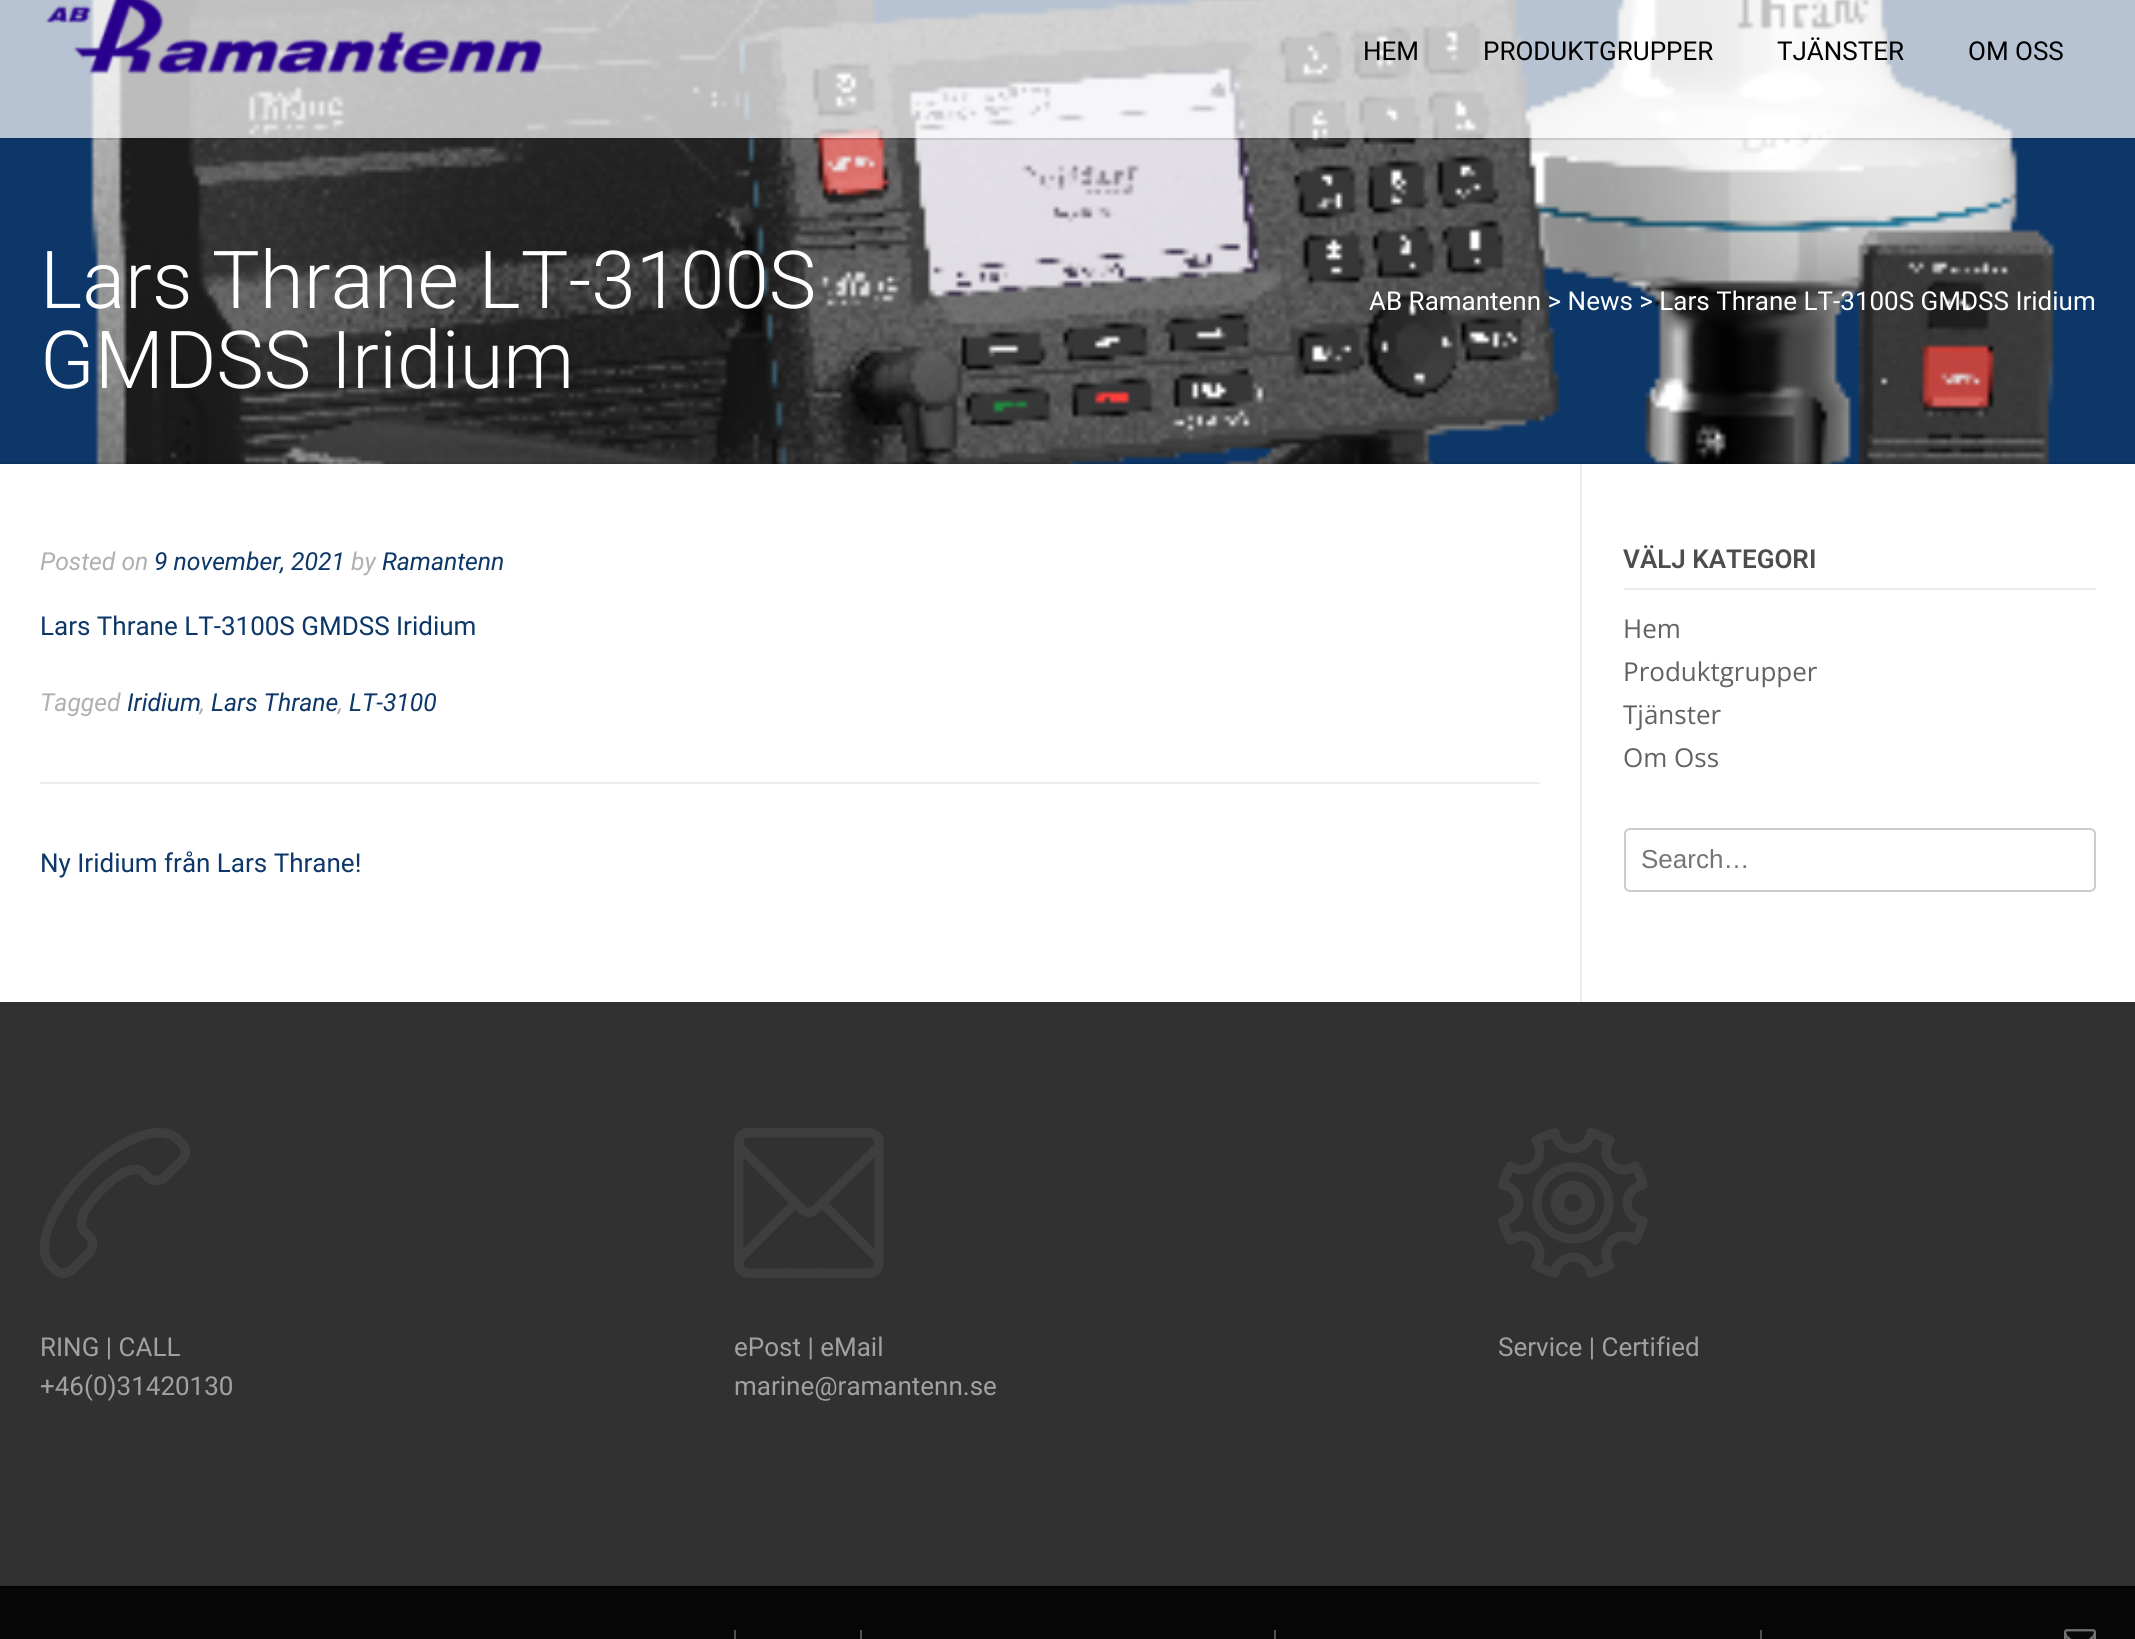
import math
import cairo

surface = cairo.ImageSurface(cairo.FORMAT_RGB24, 2135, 1639)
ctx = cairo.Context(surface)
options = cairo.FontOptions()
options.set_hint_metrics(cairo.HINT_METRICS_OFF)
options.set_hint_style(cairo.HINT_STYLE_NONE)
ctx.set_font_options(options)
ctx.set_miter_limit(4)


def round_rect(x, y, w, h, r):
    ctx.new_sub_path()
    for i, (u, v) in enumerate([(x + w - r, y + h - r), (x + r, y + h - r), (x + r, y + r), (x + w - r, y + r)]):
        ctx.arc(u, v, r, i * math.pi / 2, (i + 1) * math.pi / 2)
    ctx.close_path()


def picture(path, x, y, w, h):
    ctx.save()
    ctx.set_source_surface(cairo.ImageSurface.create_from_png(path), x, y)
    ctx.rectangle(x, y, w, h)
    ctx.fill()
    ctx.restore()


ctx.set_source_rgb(1, 1, 1)
ctx.paint()
ctx.set_source_rgb(0.047, 0.216, 0.408)
ctx.rectangle(0, 0, 2135, 464)
ctx.fill()
picture("img2.png", 90, 0, 1965, 464)
ctx.set_source_rgba(0, 0, 0, 0.12)
ctx.rectangle(0, 138, 2135, 2)
ctx.fill()
ctx.set_source_rgba(1, 1, 1, 0.7)
ctx.rectangle(0, 0, 2135, 138)
ctx.fill()
picture("img1.png", 45, 0, 498, 74)
ctx.select_font_face("Roboto")
ctx.set_font_size(26)
ctx.set_source_rgb(0, 0, 0)
ctx.move_to(1363, 60)
ctx.show_text("HEM")
ctx.move_to(1483, 60)
ctx.show_text("PRODUKTGRUPPER")
ctx.move_to(1777, 60)
ctx.show_text("TJÄNSTER")
ctx.move_to(1968, 60)
ctx.show_text("OM OSS")
ctx.set_source_rgba(0, 0, 0, 0.1)
ctx.rectangle(0, 462, 2135, 2)
ctx.fill()
ctx.select_font_face("Roboto Light")
ctx.set_font_size(80)
ctx.set_source_rgb(1, 1, 1)
ctx.move_to(40, 308)
ctx.show_text("Lars Thrane LT-3100S")
ctx.move_to(40, 388)
ctx.show_text("GMDSS Iridium")
ctx.select_font_face("Roboto")
ctx.set_font_size(26)
ctx.move_to(1369, 310)
ctx.show_text("AB Ramantenn > News > Lars Thrane LT-3100S GMDSS Iridium")
ctx.set_source_rgb(0.918, 0.918, 0.918)
ctx.rectangle(1580, 464, 2, 538)
ctx.fill()
ctx.set_source_rgb(0.922, 0.922, 0.922)
ctx.rectangle(40, 782, 1500, 2)
ctx.fill()
ctx.select_font_face("Roboto", cairo.FONT_SLANT_ITALIC)
ctx.set_font_size(24.75)
ctx.set_source_rgb(0.69, 0.69, 0.69)
ctx.move_to(40, 570)
ctx.show_text("Posted on")
ctx.set_source_rgb(0.047, 0.216, 0.408)
ctx.move_to(154, 570)
ctx.show_text("9 november, 2021")
ctx.set_source_rgb(0.69, 0.69, 0.69)
ctx.move_to(351, 570)
ctx.show_text("by")
ctx.set_source_rgb(0.047, 0.216, 0.408)
ctx.move_to(382, 570)
ctx.show_text("Ramantenn")
ctx.select_font_face("Roboto")
ctx.set_font_size(26)
ctx.move_to(40, 635)
ctx.show_text("Lars Thrane LT-3100S GMDSS Iridium")
ctx.select_font_face("Roboto", cairo.FONT_SLANT_ITALIC)
ctx.set_font_size(24.75)
ctx.set_source_rgb(0.69, 0.69, 0.69)
ctx.move_to(40, 711)
ctx.show_text("Tagged")
ctx.set_source_rgb(0.047, 0.216, 0.408)
ctx.move_to(127, 711)
ctx.show_text("Iridium")
ctx.set_source_rgb(0.69, 0.69, 0.69)
ctx.move_to(200, 711)
ctx.show_text(",")
ctx.set_source_rgb(0.047, 0.216, 0.408)
ctx.move_to(211, 711)
ctx.show_text("Lars Thrane")
ctx.set_source_rgb(0.69, 0.69, 0.69)
ctx.move_to(338, 711)
ctx.show_text(",")
ctx.set_source_rgb(0.047, 0.216, 0.408)
ctx.move_to(349, 711)
ctx.show_text("LT-3100")
ctx.select_font_face("Roboto")
ctx.set_font_size(26)
ctx.move_to(40, 872)
ctx.show_text("Ny Iridium från Lars Thrane!")
ctx.set_source_rgb(0.918, 0.918, 0.918)
ctx.rectangle(1624, 588, 472, 2)
ctx.fill()
ctx.select_font_face("Roboto SemiBold")
ctx.set_source_rgb(0.302, 0.302, 0.302)
ctx.move_to(1623, 568)
ctx.show_text("VÄLJ KATEGORI")
ctx.select_font_face("Open Sans")
ctx.set_source_rgb(0.384, 0.384, 0.384)
ctx.move_to(1623, 638)
ctx.show_text("Hem")
ctx.move_to(1623, 681)
ctx.show_text("Produktgrupper")
ctx.move_to(1623, 724)
ctx.show_text("Tjänster")
ctx.move_to(1623, 767)
ctx.show_text("Om Oss")
round_rect(1625, 829, 470, 62, 5)
ctx.set_source_rgb(0.8, 0.8, 0.8)
ctx.stroke()
ctx.select_font_face("Liberation Sans")
ctx.set_source_rgb(0.459, 0.459, 0.459)
ctx.move_to(1641, 868)
ctx.show_text("Search…")
ctx.set_source_rgb(0.192, 0.192, 0.192)
ctx.rectangle(0, 1002, 2135, 584)
ctx.fill()
picture("img3.png", 40, 1128, 150, 150)
ctx.select_font_face("Roboto")
ctx.set_source_rgb(0.631, 0.631, 0.631)
ctx.move_to(40, 1356)
ctx.show_text("RING | CALL")
ctx.move_to(40, 1395)
ctx.show_text("+46(0)31420130")
picture("img4.png", 734, 1128, 150, 150)
ctx.move_to(734, 1356)
ctx.show_text("ePost | eMail")
ctx.move_to(734, 1395)
ctx.show_text("marine@ramantenn.se")
picture("img5.png", 1498, 1128, 150, 150)
ctx.move_to(1498, 1356)
ctx.show_text("Service | Certified")
ctx.set_source_rgb(0.031, 0.031, 0.031)
ctx.rectangle(0, 1588, 2135, 51)
ctx.fill()
ctx.set_source_rgb(0.016, 0.016, 0.016)
ctx.rectangle(0, 1586, 2135, 2)
ctx.fill()
ctx.set_source_rgb(0.322, 0.322, 0.322)
ctx.rectangle(734, 1630, 2, 9)
ctx.fill()
ctx.rectangle(860, 1630, 2, 9)
ctx.fill()
ctx.rectangle(1274, 1630, 2, 9)
ctx.fill()
ctx.rectangle(1760, 1630, 2, 9)
ctx.fill()
picture("img6.png", 2064, 1629, 32, 10)
surface.write_to_png("page.png")
